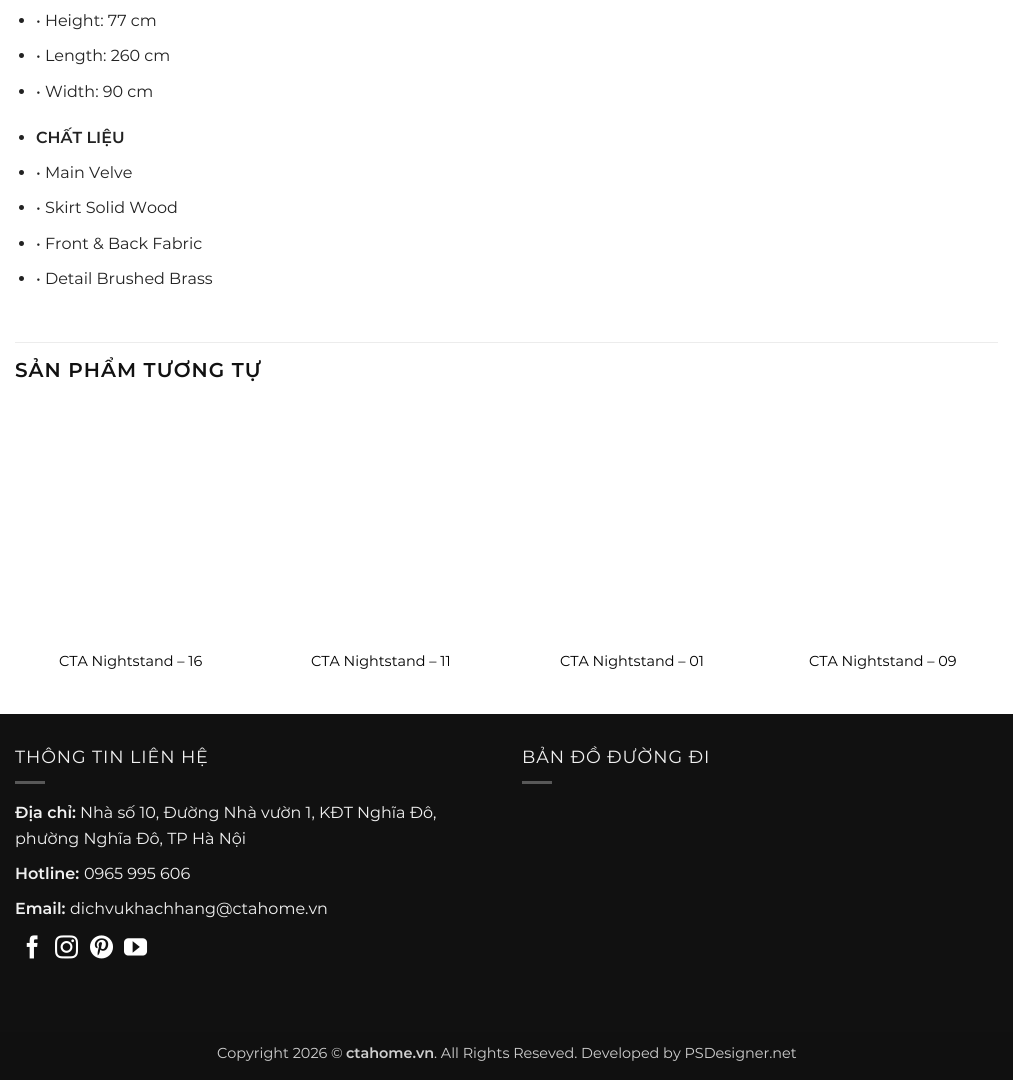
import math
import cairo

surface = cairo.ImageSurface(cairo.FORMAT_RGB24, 1013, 1080)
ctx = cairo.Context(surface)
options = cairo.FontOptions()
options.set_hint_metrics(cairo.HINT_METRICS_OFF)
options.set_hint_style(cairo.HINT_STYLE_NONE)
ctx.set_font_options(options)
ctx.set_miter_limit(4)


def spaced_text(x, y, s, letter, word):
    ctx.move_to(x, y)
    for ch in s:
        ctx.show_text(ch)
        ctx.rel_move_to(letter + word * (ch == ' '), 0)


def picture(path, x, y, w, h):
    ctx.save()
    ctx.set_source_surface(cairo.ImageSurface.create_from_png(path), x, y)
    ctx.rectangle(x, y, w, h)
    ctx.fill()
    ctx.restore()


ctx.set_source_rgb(1, 1, 1)
ctx.paint()
ctx.set_source_rgb(0.133, 0.133, 0.133)
ctx.arc(21.5, 20.5, 2.5, 0, 2 * math.pi)
ctx.fill()
ctx.select_font_face("Montserrat")
ctx.set_font_size(16)
ctx.move_to(36, 26)
ctx.show_text("• Height: 77 cm")
ctx.new_path()
ctx.arc(21.5, 55.5, 2.5, 0, 2 * math.pi)
ctx.fill()
ctx.move_to(36, 61)
ctx.show_text("• Length: 260 cm")
ctx.new_path()
ctx.arc(21.5, 91.5, 2.5, 0, 2 * math.pi)
ctx.fill()
ctx.move_to(36, 97)
ctx.show_text("• Width: 90 cm")
ctx.new_path()
ctx.arc(21.5, 137.5, 2.5, 0, 2 * math.pi)
ctx.fill()
ctx.select_font_face("Montserrat SemiBold")
ctx.move_to(36, 143)
ctx.show_text("CHẤT LIỆU")
ctx.new_path()
ctx.arc(21.5, 172.5, 2.5, 0, 2 * math.pi)
ctx.fill()
ctx.select_font_face("Montserrat")
ctx.move_to(36, 178)
ctx.show_text("• Main Velve")
ctx.new_path()
ctx.arc(21.5, 207.5, 2.5, 0, 2 * math.pi)
ctx.fill()
ctx.move_to(36, 213)
ctx.show_text("• Skirt Solid Wood")
ctx.new_path()
ctx.arc(21.5, 243.5, 2.5, 0, 2 * math.pi)
ctx.fill()
ctx.move_to(36, 249)
ctx.show_text("• Front & Back Fabric")
ctx.new_path()
ctx.arc(21.5, 278.5, 2.5, 0, 2 * math.pi)
ctx.fill()
ctx.move_to(36, 284)
ctx.show_text("• Detail Brushed Brass")
ctx.set_source_rgb(0.925, 0.925, 0.925)
ctx.rectangle(15, 342, 983, 1)
ctx.fill()
ctx.select_font_face("Montserrat SemiBold")
ctx.set_font_size(20)
ctx.set_source_rgb(0.067, 0.067, 0.067)
spaced_text(15, 377, "SẢN PHẨM TƯƠNG TỰ", 1, 0)
ctx.select_font_face("Montserrat")
ctx.set_font_size(14.4)
ctx.set_source_rgb(0, 0, 0)
ctx.move_to(59, 666)
ctx.show_text("CTA Nightstand – 16")
ctx.move_to(311, 666)
ctx.show_text("CTA Nightstand – 11")
ctx.move_to(560, 666)
ctx.show_text("CTA Nightstand – 01")
ctx.move_to(809, 666)
ctx.show_text("CTA Nightstand – 09")
ctx.set_source_rgb(0.067, 0.067, 0.067)
ctx.rectangle(0, 714, 1013, 318)
ctx.fill()
ctx.set_font_size(17.6)
ctx.set_source_rgb(0.945, 0.945, 0.945)
spaced_text(15, 763, "THÔNG TIN LIÊN HỆ", 0.9, 0)
ctx.set_source_rgb(0.345, 0.345, 0.345)
ctx.rectangle(15, 781, 30, 3)
ctx.fill()
ctx.select_font_face("Montserrat SemiBold")
ctx.set_font_size(16)
ctx.set_source_rgb(0.945, 0.945, 0.945)
ctx.move_to(15, 818)
ctx.show_text("Địa chỉ:")
ctx.select_font_face("Montserrat")
ctx.move_to(80, 818)
ctx.show_text("Nhà số 10, Đường Nhà vườn 1, KĐT Nghĩa Đô,")
ctx.move_to(15, 844)
ctx.show_text("phường Nghĩa Đô, TP Hà Nội")
ctx.select_font_face("Montserrat SemiBold")
ctx.move_to(15, 879)
ctx.show_text("Hotline:")
ctx.select_font_face("Montserrat")
ctx.move_to(84, 879)
ctx.show_text("0965 995 606")
ctx.select_font_face("Montserrat SemiBold")
ctx.move_to(15, 914)
ctx.show_text("Email:")
ctx.select_font_face("Montserrat")
ctx.move_to(70, 914)
ctx.show_text("dichvukhachhang@ctahome.vn")
picture("img1.png", 26, 935, 12, 24)
picture("img2.png", 55, 935, 23, 24)
picture("img3.png", 90, 935, 23, 24)
picture("img4.png", 124, 938, 24, 18)
ctx.set_font_size(17.6)
spaced_text(522, 763, "BẢN ĐỒ ĐƯỜNG ĐI", 0.9, 0)
ctx.set_source_rgb(0.345, 0.345, 0.345)
ctx.rectangle(522, 781, 30, 3)
ctx.fill()
ctx.set_source_rgb(0.063, 0.063, 0.063)
ctx.rectangle(0, 1032, 1013, 48)
ctx.fill()
ctx.set_font_size(14.4)
ctx.set_source_rgb(0.812, 0.812, 0.812)
ctx.move_to(217, 1058)
ctx.show_text("Copyright 2026 ©")
ctx.select_font_face("Montserrat SemiBold")
ctx.move_to(346, 1058)
ctx.show_text("ctahome.vn")
ctx.select_font_face("Montserrat")
ctx.move_to(434, 1058)
ctx.show_text(". All Rights Reseved. Developed by PSDesigner.net")
surface.write_to_png("page.png")
